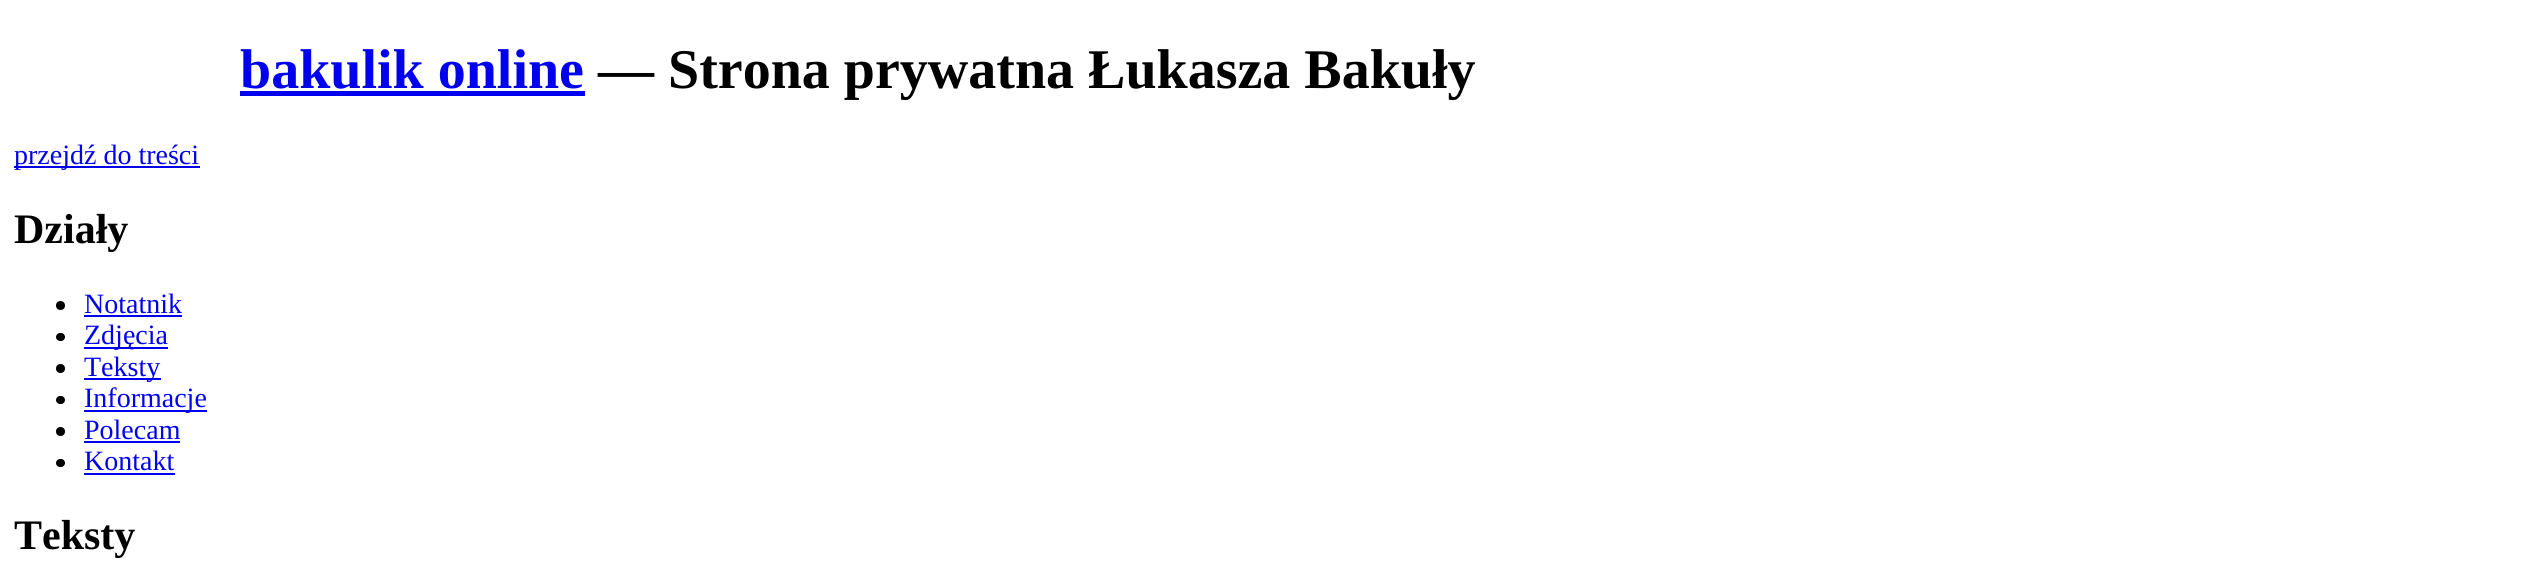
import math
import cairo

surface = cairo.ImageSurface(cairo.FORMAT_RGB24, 2544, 580)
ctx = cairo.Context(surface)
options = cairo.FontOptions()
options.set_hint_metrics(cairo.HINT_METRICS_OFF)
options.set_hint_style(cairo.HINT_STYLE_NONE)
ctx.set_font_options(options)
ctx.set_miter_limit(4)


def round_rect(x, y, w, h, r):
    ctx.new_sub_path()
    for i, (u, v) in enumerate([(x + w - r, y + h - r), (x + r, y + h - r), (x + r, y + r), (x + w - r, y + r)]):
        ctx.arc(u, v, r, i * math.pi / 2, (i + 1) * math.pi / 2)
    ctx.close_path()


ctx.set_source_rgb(1, 1, 1)
ctx.paint()
ctx.select_font_face("Liberation Serif", cairo.FONT_SLANT_NORMAL, cairo.FONT_WEIGHT_BOLD)
ctx.set_font_size(56)
ctx.set_source_rgb(0, 0, 0.933)
ctx.move_to(240, 88)
ctx.show_text("bakulik online")
ctx.rectangle(240, 91, 345, 5)
ctx.fill()
ctx.set_source_rgb(0, 0, 0)
ctx.move_to(598, 88)
ctx.show_text("— Strona prywatna Łukasza Bakuły")
ctx.set_source_rgb(0, 0, 0.933)
ctx.rectangle(14, 166, 186, 2)
ctx.fill()
ctx.select_font_face("Liberation Serif")
ctx.set_font_size(28)
ctx.move_to(14, 164)
ctx.show_text("przejdź do treści")
ctx.select_font_face("Liberation Serif", cairo.FONT_SLANT_NORMAL, cairo.FONT_WEIGHT_BOLD)
ctx.set_font_size(42)
ctx.set_source_rgb(0, 0, 0)
ctx.move_to(14, 243)
ctx.show_text("Działy")
ctx.new_path()
ctx.arc(60.5, 305.5, 4.5, 0, 2 * math.pi)
ctx.fill()
ctx.select_font_face("Liberation Serif")
ctx.set_font_size(28)
ctx.set_source_rgb(0, 0, 0.933)
ctx.move_to(84, 313)
ctx.show_text("Notatnik")
ctx.rectangle(84, 315, 98, 2)
ctx.fill()
ctx.set_source_rgb(0, 0, 0)
round_rect(56, 333, 9, 8, 4)
ctx.fill()
ctx.set_source_rgb(0, 0, 0.933)
ctx.rectangle(84, 347, 84, 2)
ctx.fill()
ctx.move_to(84, 344)
ctx.show_text("Zdjęcia")
ctx.set_source_rgb(0, 0, 0)
ctx.new_path()
ctx.arc(60.5, 368.5, 4.5, 0, 2 * math.pi)
ctx.fill()
ctx.set_source_rgb(0, 0, 0.933)
ctx.rectangle(84, 378, 77, 2)
ctx.fill()
ctx.move_to(84, 376)
ctx.show_text("Teksty")
ctx.set_source_rgb(0, 0, 0)
round_rect(56, 396, 9, 8, 4)
ctx.fill()
ctx.set_source_rgb(0, 0, 0.933)
ctx.rectangle(84, 410, 123, 2)
ctx.fill()
ctx.move_to(84, 407)
ctx.show_text("Informacje")
ctx.set_source_rgb(0, 0, 0)
ctx.new_path()
ctx.arc(60.5, 431.5, 4.5, 0, 2 * math.pi)
ctx.fill()
ctx.set_source_rgb(0, 0, 0.933)
ctx.move_to(84, 439)
ctx.show_text("Polecam")
ctx.rectangle(84, 441, 96, 2)
ctx.fill()
ctx.set_source_rgb(0, 0, 0)
round_rect(56, 459, 9, 8, 4)
ctx.fill()
ctx.set_source_rgb(0, 0, 0.933)
ctx.move_to(84, 470)
ctx.show_text("Kontakt")
ctx.rectangle(84, 473, 91, 2)
ctx.fill()
ctx.select_font_face("Liberation Serif", cairo.FONT_SLANT_NORMAL, cairo.FONT_WEIGHT_BOLD)
ctx.set_font_size(42)
ctx.set_source_rgb(0, 0, 0)
ctx.move_to(14, 549)
ctx.show_text("Teksty")
surface.write_to_png("page.png")
